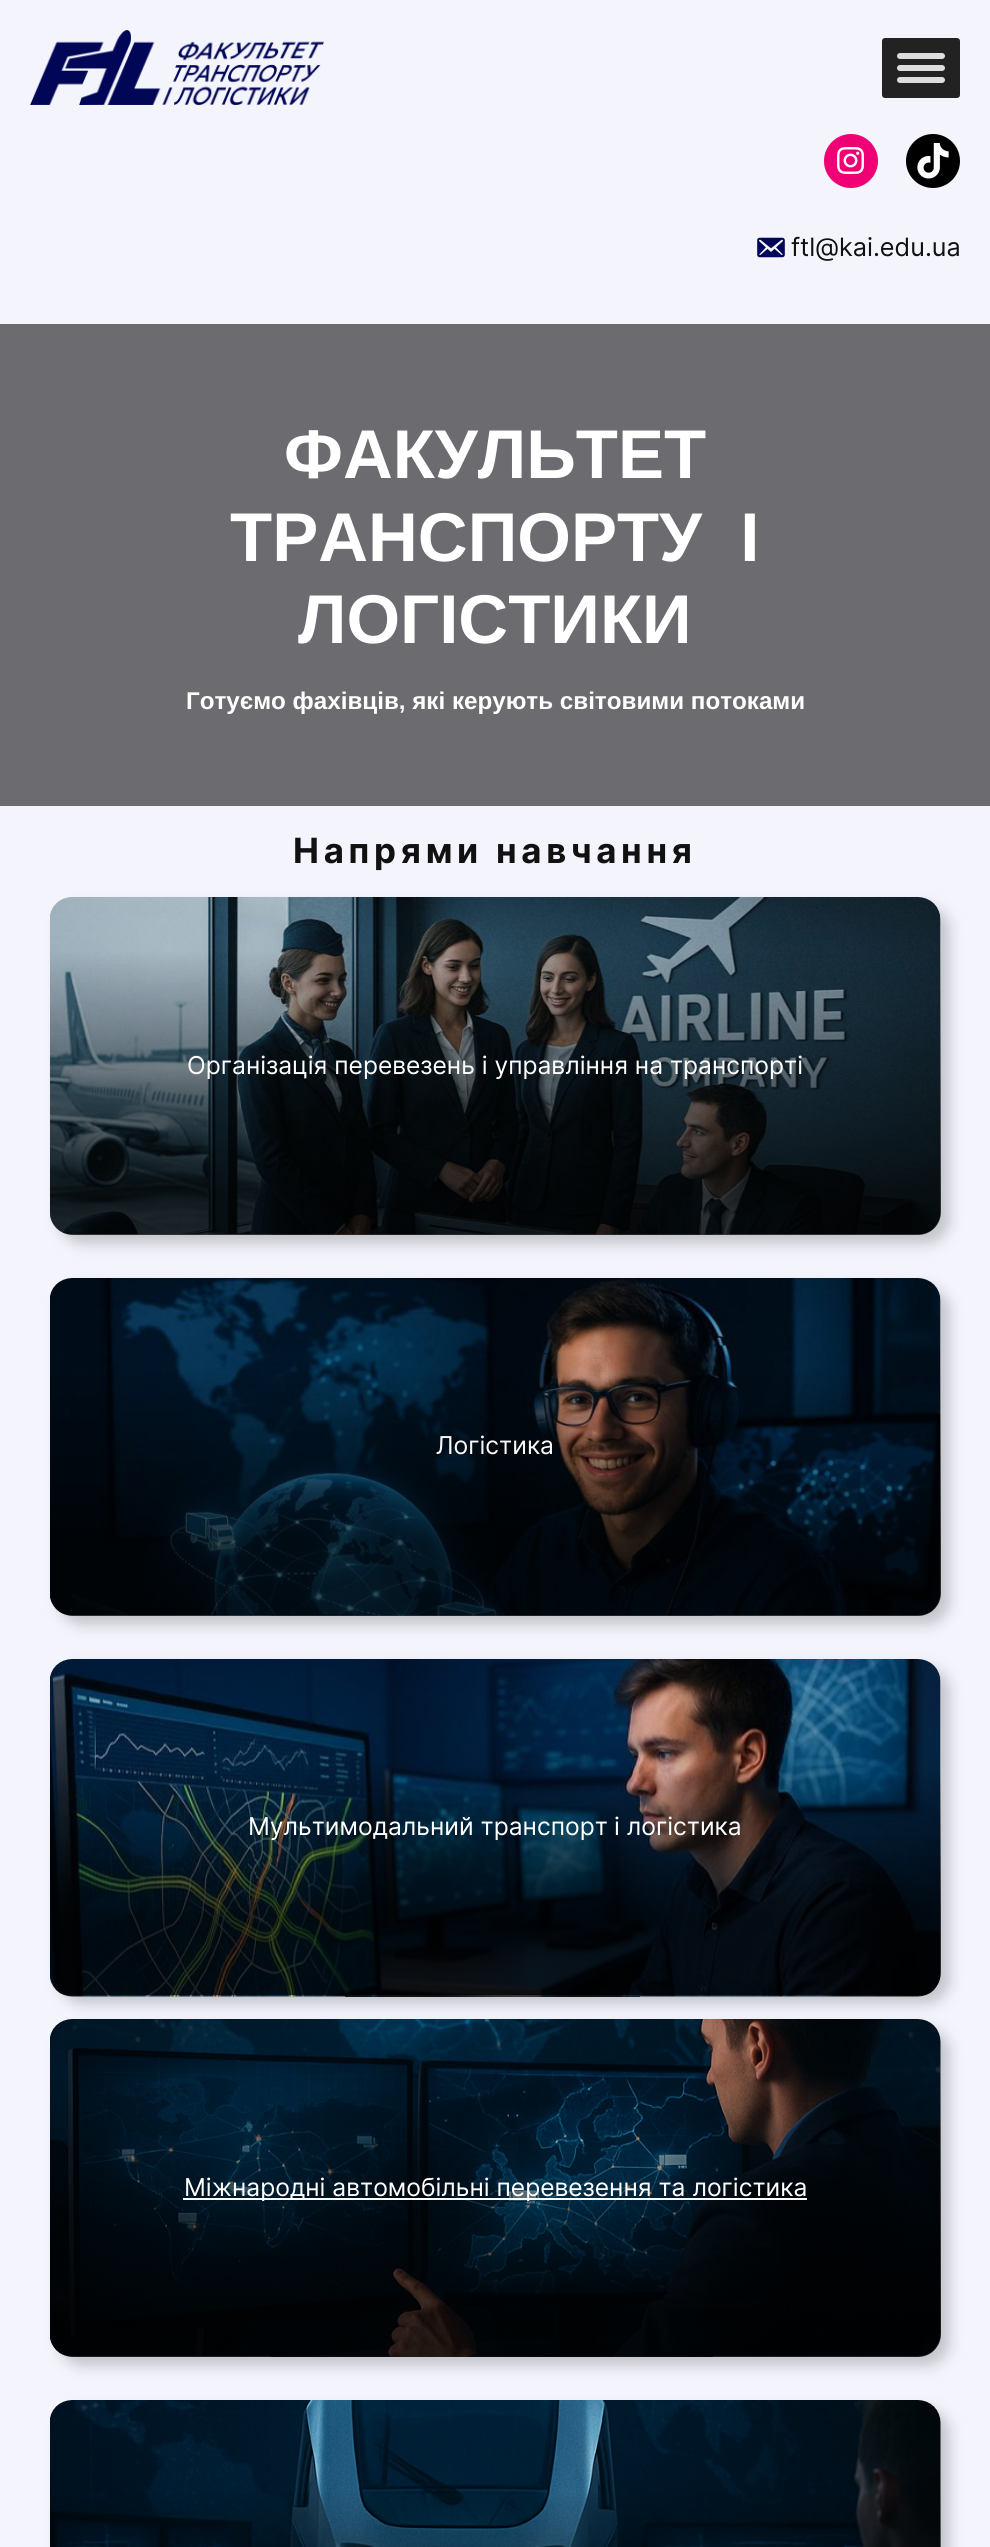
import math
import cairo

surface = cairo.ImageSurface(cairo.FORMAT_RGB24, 990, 2547)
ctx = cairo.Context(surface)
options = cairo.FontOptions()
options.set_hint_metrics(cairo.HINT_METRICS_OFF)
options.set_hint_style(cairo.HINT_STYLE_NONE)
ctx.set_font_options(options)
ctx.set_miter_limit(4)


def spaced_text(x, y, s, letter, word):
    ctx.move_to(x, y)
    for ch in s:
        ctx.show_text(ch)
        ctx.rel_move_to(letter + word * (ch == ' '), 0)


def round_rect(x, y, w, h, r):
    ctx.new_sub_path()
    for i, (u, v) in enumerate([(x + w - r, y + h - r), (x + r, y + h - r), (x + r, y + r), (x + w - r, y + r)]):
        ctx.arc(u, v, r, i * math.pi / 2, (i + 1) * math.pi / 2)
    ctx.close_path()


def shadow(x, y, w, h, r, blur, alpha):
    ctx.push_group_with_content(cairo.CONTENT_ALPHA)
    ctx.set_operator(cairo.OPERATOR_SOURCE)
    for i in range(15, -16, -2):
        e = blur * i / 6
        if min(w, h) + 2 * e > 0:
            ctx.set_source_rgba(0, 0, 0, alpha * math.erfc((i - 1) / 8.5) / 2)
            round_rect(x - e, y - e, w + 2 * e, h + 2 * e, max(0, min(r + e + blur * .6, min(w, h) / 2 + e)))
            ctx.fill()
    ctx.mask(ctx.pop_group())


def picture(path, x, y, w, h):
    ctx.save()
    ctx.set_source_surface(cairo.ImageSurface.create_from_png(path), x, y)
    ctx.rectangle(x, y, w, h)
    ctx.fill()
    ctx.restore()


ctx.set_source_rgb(0.957, 0.957, 0.992)
ctx.paint()
picture("img1.png", 30, 30, 294, 75)
ctx.set_source_rgb(0.133, 0.133, 0.133)
round_rect(882, 38, 78, 60, 3)
ctx.fill()
ctx.set_source_rgb(0.867, 0.867, 0.867)
round_rect(897, 53, 48, 6, 3)
ctx.fill()
round_rect(897, 65, 48, 6, 3)
ctx.fill()
round_rect(897, 77, 48, 6, 3)
ctx.fill()
ctx.set_source_rgb(0.941, 0, 0.459)
ctx.arc(851, 161, 27, 0, 2 * math.pi)
ctx.fill()
picture("img2.png", 837, 147, 27, 27)
ctx.set_source_rgb(0, 0, 0)
ctx.arc(933, 161, 27, 0, 2 * math.pi)
ctx.fill()
picture("img3.png", 917, 143, 32, 36)
picture("img4.png", 757, 237, 28, 21)
ctx.select_font_face("Inter")
ctx.set_font_size(25.25)
ctx.set_source_rgb(0.067, 0.067, 0.067)
ctx.move_to(791, 256)
ctx.show_text("ftl@kai.edu.ua")
ctx.set_source_rgb(0.42, 0.42, 0.439)
ctx.rectangle(0, 324, 990, 482)
ctx.fill()
ctx.select_font_face("Liberation Sans", cairo.FONT_SLANT_NORMAL, cairo.FONT_WEIGHT_BOLD)
ctx.set_font_size(69)
ctx.set_source_rgb(1, 1, 1)
ctx.move_to(284, 478)
ctx.show_text("ФАКУЛЬТЕТ")
spaced_text(230, 561, "ТРАНСПОРТУ І", 0, 19)
ctx.move_to(298, 643)
ctx.show_text("ЛОГІСТИКИ")
ctx.set_font_size(24.2)
ctx.move_to(186, 709)
ctx.show_text("Готуємо фахівців, які керують світовими потоками")
ctx.select_font_face("Inter", cairo.FONT_SLANT_NORMAL, cairo.FONT_WEIGHT_BOLD)
ctx.set_font_size(34.75)
ctx.set_source_rgb(0.067, 0.067, 0.067)
spaced_text(293, 863, "Напрями навчання", 4.75, 0)
ctx.set_source_rgb(0, 0, 0)
shadow(59, 906, 891, 338, 23, 7, 0.2)
picture("img5.png", 50, 897, 891, 338)
gradient = cairo.LinearGradient(495, 1235, 495, 897)
gradient.add_color_stop_rgba(0.12, 0, 0, 0, 0.7)
gradient.add_color_stop_rgba(0.84, 0, 0, 0, 0)
gradient.add_color_stop_rgba(1, 1, 1, 1, 0)
gradient.add_color_stop_rgba(1, 0.98, 0.98, 0.98, 0)
ctx.set_source(gradient)
round_rect(50, 897, 891, 338, 23)
ctx.fill()
ctx.select_font_face("Inter")
ctx.set_font_size(24.6)
ctx.set_source_rgb(1, 1, 1)
ctx.move_to(187, 1074)
ctx.show_text("Організація перевезень і управління на транспорті")
ctx.set_source_rgb(0, 0, 0)
shadow(59, 1287, 891, 338, 23, 7, 0.2)
picture("img6.png", 50, 1278, 891, 338)
gradient = cairo.LinearGradient(495, 1616, 495, 1278)
gradient.add_color_stop_rgba(0.21, 0, 0, 0, 0.7)
gradient.add_color_stop_rgba(0.74, 0, 0, 0, 0)
gradient.add_color_stop_rgba(1, 1, 1, 1, 0)
ctx.set_source(gradient)
round_rect(50, 1278, 891, 338, 23)
ctx.fill()
ctx.set_source_rgb(0.976, 0.976, 0.976)
ctx.move_to(436, 1454)
ctx.show_text("Логістика")
ctx.set_source_rgb(0, 0, 0)
shadow(59, 1667, 891, 337, 23, 7, 0.2)
picture("img7.png", 50, 1659, 891, 338)
gradient = cairo.LinearGradient(495, 1995, 495, 1658)
gradient.add_color_stop_rgba(0.24, 0, 0, 0, 0.7)
gradient.add_color_stop_rgba(0.68, 0, 0, 0, 0)
gradient.add_color_stop_rgba(1, 1, 1, 1, 0)
ctx.set_source(gradient)
round_rect(50, 1658, 891, 337, 23)
ctx.fill()
ctx.set_source_rgb(1, 1, 1)
ctx.move_to(248, 1835)
ctx.show_text("Мультимодальний транспорт")
ctx.move_to(614, 1835)
ctx.show_text("і логістика")
ctx.set_source_rgb(0, 0, 0)
shadow(59, 2028, 891, 338, 23, 7, 0.2)
picture("img8.png", 50, 2019, 891, 338)
gradient = cairo.LinearGradient(495, 2357, 495, 2019)
gradient.add_color_stop_rgba(0.12, 0, 0, 0, 0.7)
gradient.add_color_stop_rgba(0.84, 0, 0, 0, 0)
gradient.add_color_stop_rgba(1, 1, 1, 1, 0)
gradient.add_color_stop_rgba(1, 0.98, 0.98, 0.98, 0)
ctx.set_source(gradient)
round_rect(50, 2019, 891, 338, 23)
ctx.fill()
ctx.set_source_rgb(1, 1, 1)
ctx.rectangle(183, 2198, 624, 2)
ctx.fill()
ctx.move_to(184, 2196)
ctx.show_text("Міжнародні автомобільні перевезення та логістика")
ctx.set_source_rgb(0, 0, 0)
shadow(59, 2409, 891, 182, 23, 7, 0.2)
picture("img9.png", 50, 2400, 891, 147)
gradient = cairo.LinearGradient(495, 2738, 495, 2400)
gradient.add_color_stop_rgba(0.21, 0, 0, 0, 0.7)
gradient.add_color_stop_rgba(0.74, 0, 0, 0, 0)
gradient.add_color_stop_rgba(1, 1, 1, 1, 0)
ctx.set_source(gradient)
ctx.rectangle(50, 2493, 891, 54)
ctx.fill()
surface.write_to_png("page.png")
